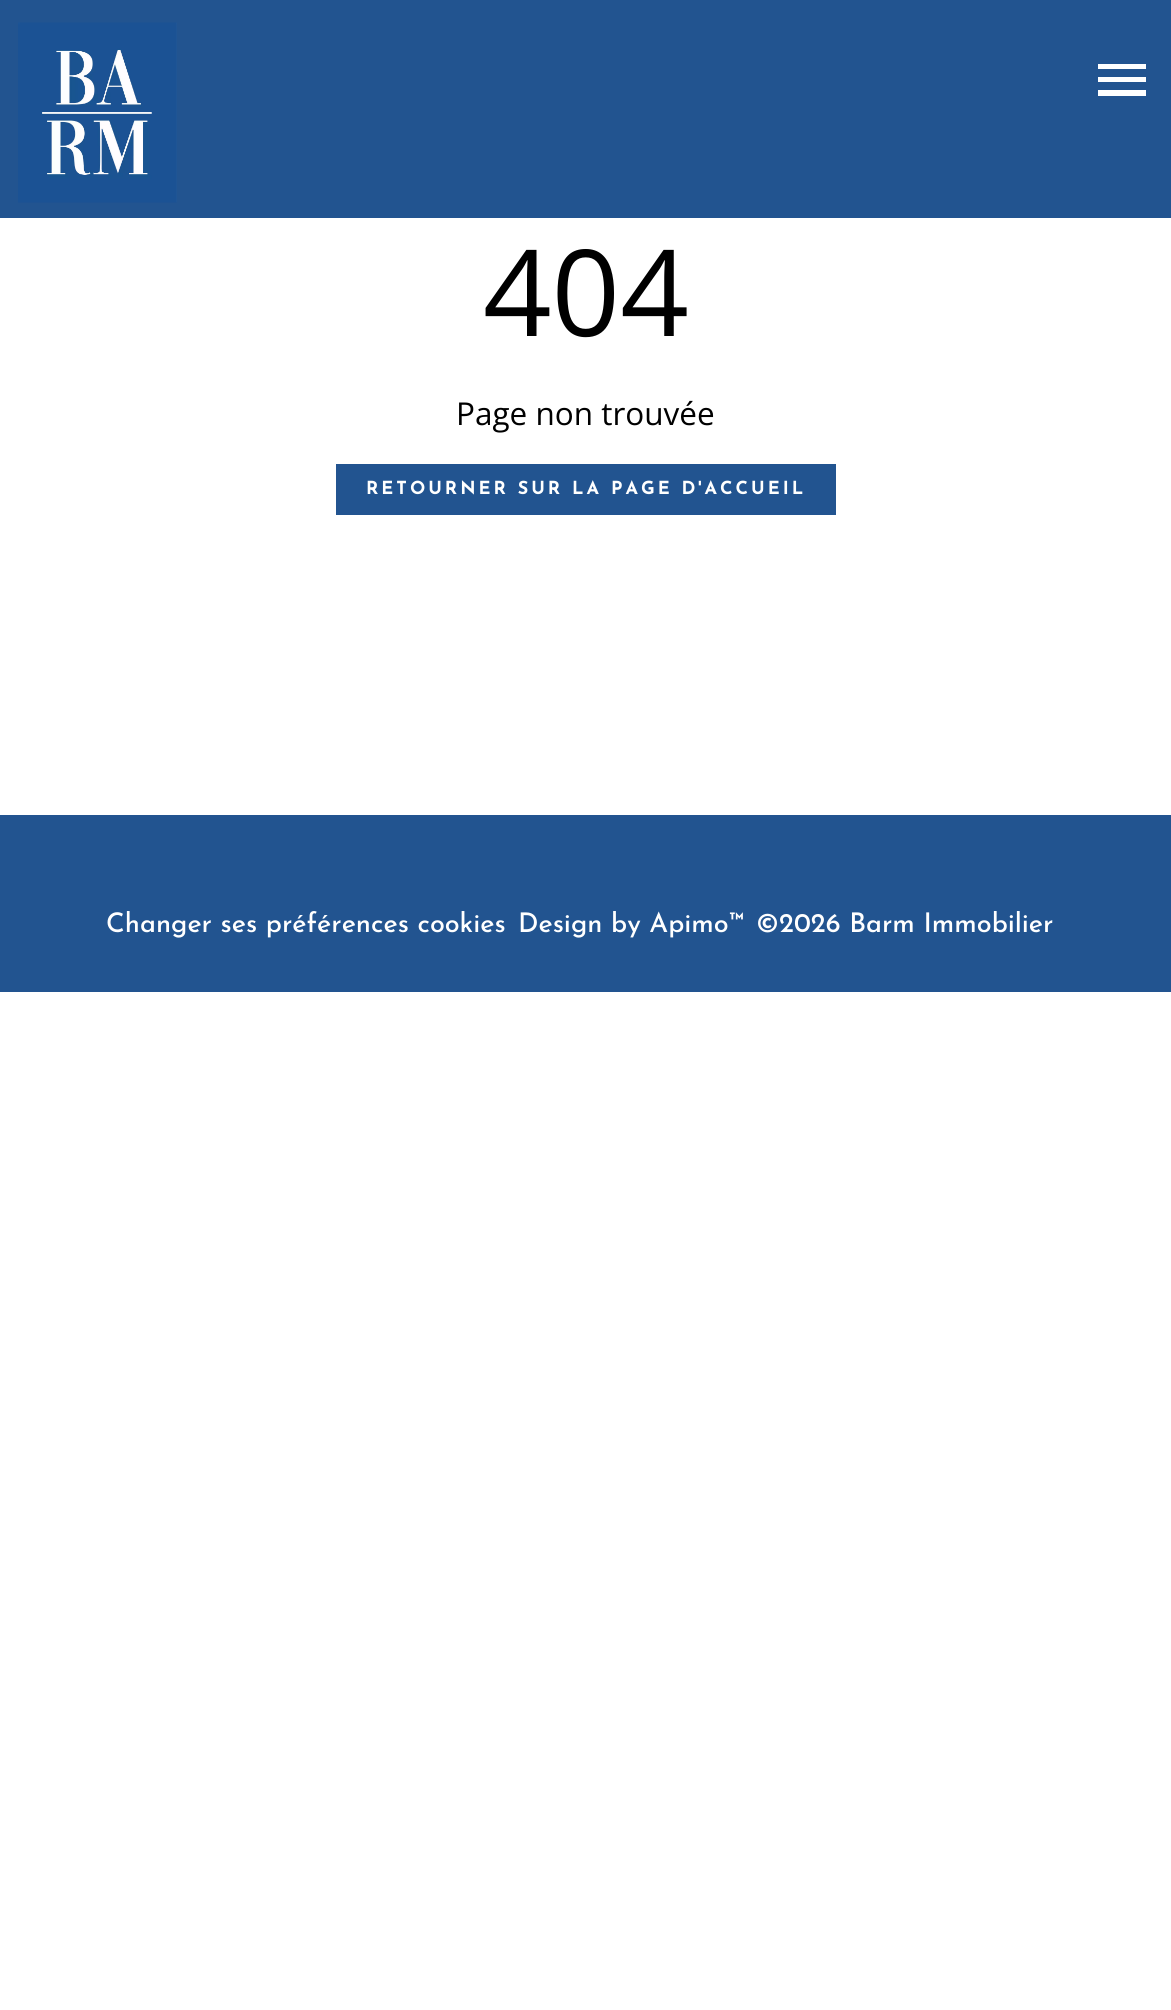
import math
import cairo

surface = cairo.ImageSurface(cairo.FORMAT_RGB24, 1171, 2010)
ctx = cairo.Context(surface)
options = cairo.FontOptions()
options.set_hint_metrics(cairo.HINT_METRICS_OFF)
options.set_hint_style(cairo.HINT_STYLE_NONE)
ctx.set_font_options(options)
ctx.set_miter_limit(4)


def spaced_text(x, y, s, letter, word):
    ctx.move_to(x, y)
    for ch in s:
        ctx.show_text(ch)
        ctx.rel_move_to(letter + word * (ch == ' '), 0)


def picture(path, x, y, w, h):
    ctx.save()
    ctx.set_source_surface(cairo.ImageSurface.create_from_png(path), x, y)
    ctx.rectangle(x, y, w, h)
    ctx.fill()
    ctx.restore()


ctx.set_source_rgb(1, 1, 1)
ctx.paint()
ctx.set_source_rgb(0.133, 0.329, 0.565)
ctx.rectangle(0, 0, 1171, 218)
ctx.fill()
picture("img1.png", 18, 22, 159, 181)
ctx.set_source_rgb(1, 1, 1)
ctx.new_path()
ctx.move_to(1098, 64)
ctx.line_to(1146, 64)
ctx.line_to(1146, 69)
ctx.line_to(1098, 69)
ctx.close_path()
ctx.move_to(1098, 77)
ctx.line_to(1146, 77)
ctx.line_to(1146, 82)
ctx.line_to(1098, 82)
ctx.close_path()
ctx.move_to(1098, 90)
ctx.line_to(1146, 90)
ctx.line_to(1146, 96)
ctx.line_to(1098, 96)
ctx.close_path()
ctx.fill()
ctx.select_font_face("Open Sans")
ctx.set_font_size(120)
ctx.set_source_rgb(0, 0, 0)
ctx.move_to(483, 336)
ctx.show_text("404")
ctx.set_font_size(31.5)
ctx.move_to(456, 425)
ctx.show_text("Page non trouvée")
ctx.set_source_rgb(0.133, 0.329, 0.565)
ctx.rectangle(336, 464, 500, 51)
ctx.fill()
ctx.select_font_face("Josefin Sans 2 Thin")
ctx.set_font_size(18)
ctx.set_source_rgb(1, 1, 1)
spaced_text(366, 494, "RETOURNER SUR LA PAGE D'ACCUEIL", 3, 0)
ctx.set_source_rgb(0.133, 0.329, 0.565)
ctx.rectangle(0, 815, 1171, 177)
ctx.fill()
ctx.select_font_face("Josefin Sans Thin")
ctx.set_font_size(27)
ctx.set_source_rgb(1, 1, 1)
ctx.move_to(106, 932)
ctx.show_text("Changer ses préférences cookies")
ctx.move_to(518, 932)
ctx.show_text("Design by Apimo™")
ctx.move_to(756, 932)
ctx.show_text("©2026 Barm Immobilier")
surface.write_to_png("page.png")
